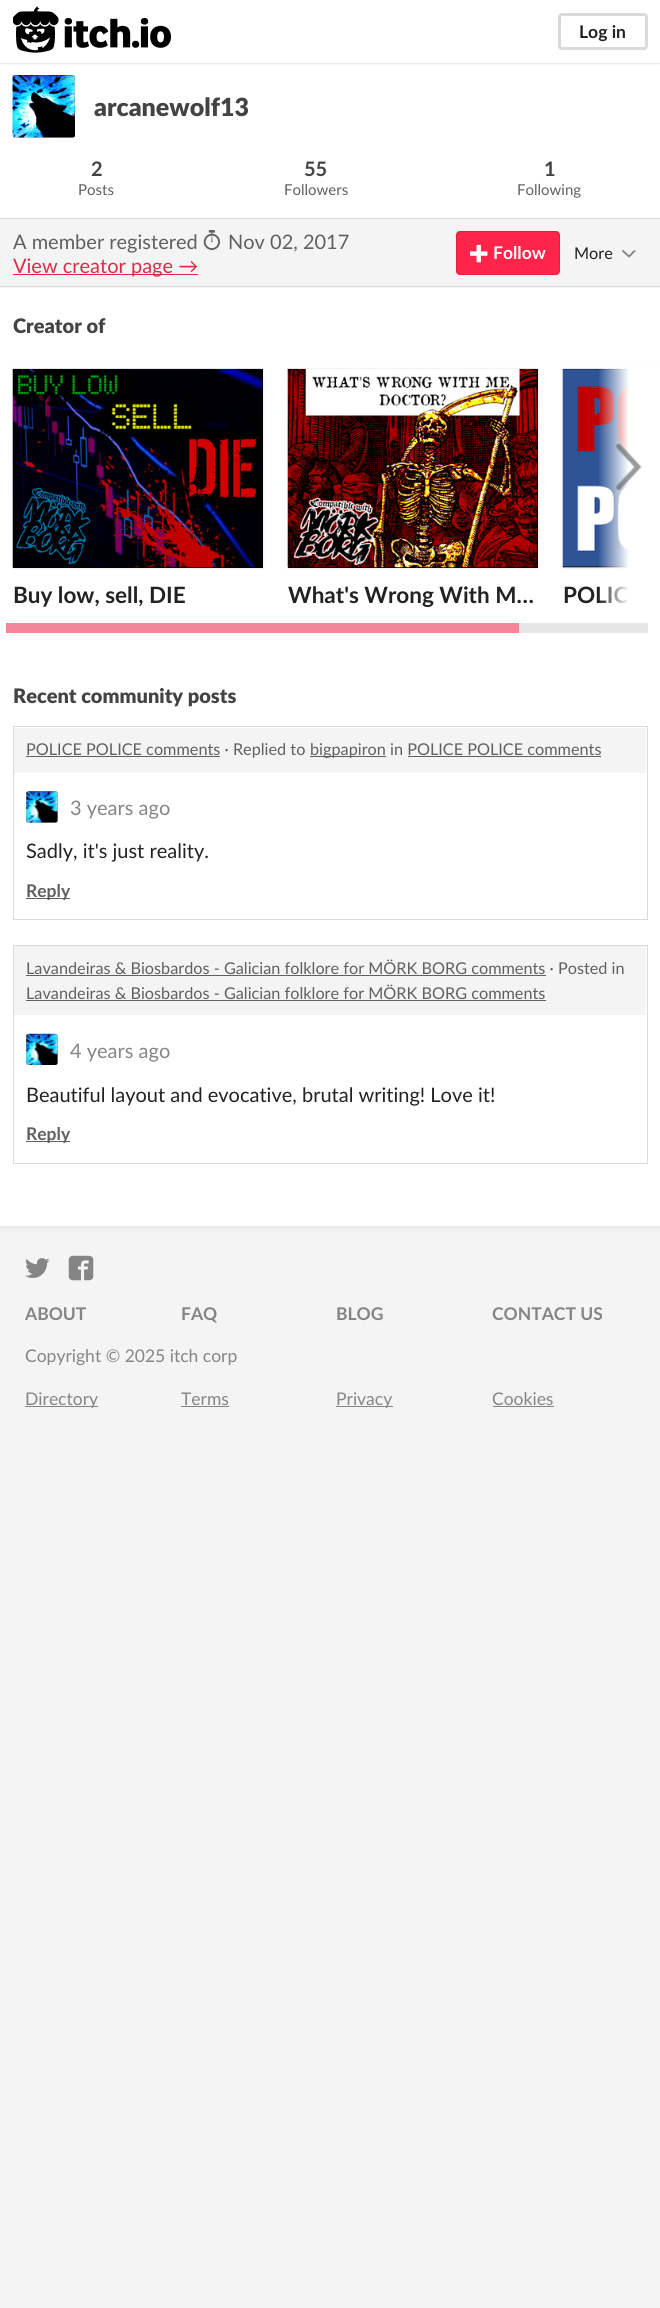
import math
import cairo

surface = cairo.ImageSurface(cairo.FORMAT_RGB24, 660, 2308)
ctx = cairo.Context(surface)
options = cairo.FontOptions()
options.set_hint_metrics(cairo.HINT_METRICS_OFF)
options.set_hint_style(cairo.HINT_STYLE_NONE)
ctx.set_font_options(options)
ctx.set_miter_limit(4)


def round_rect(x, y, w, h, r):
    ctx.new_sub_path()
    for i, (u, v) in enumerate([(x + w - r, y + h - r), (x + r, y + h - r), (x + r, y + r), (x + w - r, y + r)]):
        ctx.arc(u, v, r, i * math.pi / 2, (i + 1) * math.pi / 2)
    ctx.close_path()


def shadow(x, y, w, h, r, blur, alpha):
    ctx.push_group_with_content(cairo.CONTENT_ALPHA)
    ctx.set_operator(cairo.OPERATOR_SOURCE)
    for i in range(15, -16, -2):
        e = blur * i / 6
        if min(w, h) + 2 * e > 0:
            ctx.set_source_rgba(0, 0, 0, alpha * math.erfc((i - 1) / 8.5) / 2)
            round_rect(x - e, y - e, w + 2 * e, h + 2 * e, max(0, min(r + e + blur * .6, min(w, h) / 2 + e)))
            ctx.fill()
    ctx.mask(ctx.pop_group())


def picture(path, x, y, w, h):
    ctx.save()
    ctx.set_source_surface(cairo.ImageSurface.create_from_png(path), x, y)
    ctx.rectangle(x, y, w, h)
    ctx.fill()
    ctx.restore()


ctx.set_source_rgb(0.957, 0.957, 0.957)
ctx.paint()
ctx.set_source_rgb(0, 0, 0)
shadow(0, 65, 660, 1164, 0, 2.5, 0.05)
ctx.set_source_rgb(1, 1, 1)
ctx.rectangle(0, 63, 660, 1163)
ctx.fill()
ctx.set_source_rgb(0, 0, 0)
shadow(0, 1, 660, 63, 0, 1, 0.1)
ctx.set_source_rgb(1, 1, 1)
ctx.rectangle(0, 0, 660, 63)
ctx.fill()
picture("img1.png", 13, 6, 158, 47)
round_rect(559.5, 14.5, 87, 34, 2.5)
ctx.set_source_rgb(0.855, 0.855, 0.855)
ctx.set_line_width(3)
ctx.stroke()
ctx.select_font_face("Lato", cairo.FONT_SLANT_NORMAL, cairo.FONT_WEIGHT_BOLD)
ctx.set_font_size(17.5)
ctx.set_source_rgb(0.133, 0.133, 0.133)
ctx.move_to(579, 38)
ctx.show_text("Log in")
ctx.set_source_rgb(0.855, 0.855, 0.855)
ctx.rectangle(0, 218, 660, 1)
ctx.fill()
ctx.set_source_rgb(0.957, 0.957, 0.957)
round_rect(13, 75, 62, 63, 2.5)
ctx.fill()
picture("img2.png", 12, 75, 63, 63)
round_rect(13.5, 75.5, 61, 62, 2)
ctx.set_source_rgba(0, 0, 0, 0.1)
ctx.set_line_width(1)
ctx.stroke()
ctx.select_font_face("Lato Black")
ctx.set_font_size(25)
ctx.set_source_rgb(0.263, 0.263, 0.263)
ctx.move_to(94, 116)
ctx.show_text("arcanewolf13")
ctx.select_font_face("Lato", cairo.FONT_SLANT_NORMAL, cairo.FONT_WEIGHT_BOLD)
ctx.set_font_size(20)
ctx.move_to(91, 176)
ctx.show_text("2")
ctx.select_font_face("Lato")
ctx.set_font_size(15)
ctx.set_source_rgb(0.376, 0.376, 0.376)
ctx.move_to(78, 195)
ctx.show_text("Posts")
ctx.select_font_face("Lato", cairo.FONT_SLANT_NORMAL, cairo.FONT_WEIGHT_BOLD)
ctx.set_font_size(20)
ctx.set_source_rgb(0.263, 0.263, 0.263)
ctx.move_to(304, 176)
ctx.show_text("55")
ctx.select_font_face("Lato")
ctx.set_font_size(15)
ctx.set_source_rgb(0.376, 0.376, 0.376)
ctx.move_to(284, 195)
ctx.show_text("Followers")
ctx.select_font_face("Lato", cairo.FONT_SLANT_NORMAL, cairo.FONT_WEIGHT_BOLD)
ctx.set_font_size(20)
ctx.set_source_rgb(0.263, 0.263, 0.263)
ctx.move_to(544, 176)
ctx.show_text("1")
ctx.select_font_face("Lato")
ctx.set_font_size(15)
ctx.set_source_rgb(0.376, 0.376, 0.376)
ctx.move_to(517, 195)
ctx.show_text("Following")
ctx.set_source_rgb(0.957, 0.957, 0.957)
ctx.rectangle(0, 219, 660, 69)
ctx.fill()
ctx.set_source_rgb(0.855, 0.855, 0.855)
ctx.rectangle(0, 286, 660, 1)
ctx.fill()
ctx.set_font_size(20)
ctx.set_source_rgb(0.376, 0.376, 0.376)
ctx.move_to(13, 249)
ctx.show_text("A member registered")
picture("img3.png", 203, 230, 17, 20)
ctx.move_to(228, 249)
ctx.show_text("Nov 02, 2017")
ctx.set_source_rgb(0.855, 0.173, 0.286)
ctx.rectangle(13, 274, 185, 1)
ctx.fill()
ctx.move_to(13, 273)
ctx.show_text("View creator page →")
ctx.set_source_rgb(1, 0.141, 0.286)
round_rect(456, 231, 104, 44, 4)
ctx.fill()
round_rect(456.5, 231.5, 103, 43, 3.5)
ctx.set_source_rgba(0, 0, 0, 0.1)
ctx.stroke()
picture("img4.png", 470, 244, 18, 19)
ctx.select_font_face("Lato", cairo.FONT_SLANT_NORMAL, cairo.FONT_WEIGHT_BOLD)
ctx.set_font_size(17.5)
ctx.set_source_rgb(1, 1, 1)
ctx.move_to(493, 259)
ctx.show_text("Follow")
ctx.select_font_face("Lato")
ctx.set_font_size(16.25)
ctx.set_source_rgb(0.133, 0.133, 0.133)
ctx.move_to(574, 259)
ctx.show_text("More")
ctx.new_path()
ctx.move_to(623, 251)
ctx.line_to(629, 256.5)
ctx.line_to(634.5, 251)
ctx.set_source_rgb(0.522, 0.522, 0.522)
ctx.set_line_width(1.9)
ctx.set_line_cap(cairo.LINE_CAP_ROUND)
ctx.set_line_join(cairo.LINE_JOIN_ROUND)
ctx.stroke()
ctx.select_font_face("Lato Black")
ctx.set_font_size(20)
ctx.set_source_rgb(0.263, 0.263, 0.263)
ctx.move_to(13, 333)
ctx.show_text("Creator of")
ctx.set_source_rgb(0, 0, 0)
shadow(13, 369, 250, 199, 0, 1, 0.15)
ctx.set_source_rgb(0, 0, 0)
ctx.rectangle(13, 369, 250, 199)
ctx.fill()
picture("img5.png", 12, 368, 251, 200)
ctx.select_font_face("Lato", cairo.FONT_SLANT_NORMAL, cairo.FONT_WEIGHT_BOLD)
ctx.set_font_size(22.5)
ctx.set_source_rgb(0.133, 0.133, 0.133)
ctx.move_to(13, 603)
ctx.show_text("Buy low, sell, DIE")
ctx.set_source_rgb(0, 0, 0)
shadow(288, 369, 250, 199, 0, 1, 0.15)
ctx.set_source_rgb(0, 0, 0)
ctx.rectangle(288, 369, 250, 199)
ctx.fill()
picture("img6.png", 287, 368, 251, 200)
ctx.set_source_rgb(0.133, 0.133, 0.133)
ctx.move_to(288, 603)
ctx.show_text("What's Wrong With M…")
ctx.set_source_rgb(0, 0, 0)
shadow(563, 369, 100, 199, 0, 1, 0.15)
ctx.set_source_rgba(0, 0, 0, 0.1)
ctx.rectangle(563, 567, 66, 1)
ctx.fill()
picture("img7.png", 562, 368, 67, 200)
ctx.set_source_rgb(0.133, 0.133, 0.133)
ctx.move_to(563, 603)
ctx.show_text("POLIC")
gradient = cairo.LinearGradient(598, 482, 660, 482)
gradient.add_color_stop_rgba(0, 1, 1, 1, 0)
gradient.add_color_stop_rgba(0.5, 1, 1, 1, 1)
gradient.add_color_stop_rgba(1, 1, 1, 1, 1)
ctx.set_source(gradient)
ctx.rectangle(599, 368, 61, 236)
ctx.fill()
picture("img8.png", 616, 443, 26, 47)
ctx.set_source_rgb(0.902, 0.902, 0.902)
ctx.rectangle(519, 623, 129, 10)
ctx.fill()
ctx.set_source_rgb(0.953, 0.522, 0.596)
ctx.rectangle(6, 623, 513, 10)
ctx.fill()
ctx.select_font_face("Lato Black")
ctx.set_font_size(20)
ctx.set_source_rgb(0.263, 0.263, 0.263)
ctx.move_to(13, 703)
ctx.show_text("Recent community posts")
ctx.rectangle(13.5, 726.5, 634, 193)
ctx.set_source_rgb(0.855, 0.855, 0.855)
ctx.set_line_width(1)
ctx.set_line_cap(cairo.LINE_CAP_BUTT)
ctx.set_line_join(cairo.LINE_JOIN_MITER)
ctx.stroke()
ctx.set_source_rgb(0.957, 0.957, 0.957)
ctx.rectangle(14, 728, 632, 45)
ctx.fill()
ctx.set_source_rgb(0.376, 0.376, 0.376)
ctx.rectangle(26, 756, 194, 1)
ctx.fill()
ctx.select_font_face("Lato")
ctx.set_font_size(16.25)
ctx.move_to(26, 755)
ctx.show_text("POLICE POLICE comments · Replied to")
ctx.rectangle(310, 756, 76, 1)
ctx.fill()
ctx.move_to(310, 755)
ctx.show_text("bigpapiron in POLICE POLICE comments")
ctx.rectangle(408, 756, 193, 1)
ctx.fill()
ctx.set_source_rgb(0.8, 0.8, 0.8)
round_rect(26, 791, 32, 32, 2.5)
ctx.fill()
picture("img9.png", 26, 791, 32, 32)
round_rect(26.5, 791.5, 31, 31, 2)
ctx.set_source_rgba(0, 0, 0, 0.1)
ctx.stroke()
ctx.set_font_size(20)
ctx.set_source_rgb(0.522, 0.522, 0.522)
ctx.move_to(70, 815)
ctx.show_text("3 years ago")
ctx.set_source_rgb(0.133, 0.133, 0.133)
ctx.move_to(26, 858)
ctx.show_text("Sadly, it's just reality.")
ctx.set_source_rgb(0.376, 0.376, 0.376)
ctx.rectangle(26, 898, 44, 1)
ctx.fill()
ctx.select_font_face("Lato", cairo.FONT_SLANT_NORMAL, cairo.FONT_WEIGHT_BOLD)
ctx.set_font_size(17.5)
ctx.move_to(26, 897)
ctx.show_text("Reply")
ctx.rectangle(13.5, 945.5, 634, 218)
ctx.set_source_rgb(0.855, 0.855, 0.855)
ctx.stroke()
ctx.set_source_rgb(0.957, 0.957, 0.957)
ctx.rectangle(14, 946, 632, 69)
ctx.fill()
ctx.select_font_face("Lato")
ctx.set_font_size(16.25)
ctx.set_source_rgb(0.376, 0.376, 0.376)
ctx.move_to(26, 974)
ctx.show_text("Lavandeiras & Biosbardos - Galician folklore for MÖRK BORG comments · Posted in")
ctx.rectangle(26, 975, 520, 1)
ctx.fill()
ctx.move_to(26, 999)
ctx.show_text("Lavandeiras & Biosbardos - Galician folklore for MÖRK BORG comments")
ctx.rectangle(26, 1000, 520, 1)
ctx.fill()
ctx.set_source_rgb(0.8, 0.8, 0.8)
round_rect(26, 1034, 32, 31, 2.5)
ctx.fill()
picture("img10.png", 26, 1033, 32, 32)
round_rect(26.5, 1034.5, 31, 30, 2)
ctx.set_source_rgba(0, 0, 0, 0.1)
ctx.stroke()
ctx.set_font_size(20)
ctx.set_source_rgb(0.522, 0.522, 0.522)
ctx.move_to(70, 1058)
ctx.show_text("4 years ago")
ctx.set_source_rgb(0.133, 0.133, 0.133)
ctx.move_to(26, 1102)
ctx.show_text("Beautiful layout and evocative, brutal writing! Love it!")
ctx.set_source_rgb(0.376, 0.376, 0.376)
ctx.rectangle(26, 1141, 44, 1)
ctx.fill()
ctx.select_font_face("Lato", cairo.FONT_SLANT_NORMAL, cairo.FONT_WEIGHT_BOLD)
ctx.set_font_size(17.5)
ctx.move_to(26, 1140)
ctx.show_text("Reply")
picture("img11.png", 25, 1258, 25, 20)
picture("img12.png", 68, 1255, 26, 26)
ctx.set_source_rgb(0.522, 0.522, 0.522)
ctx.move_to(25, 1320)
ctx.show_text("ABOUT")
ctx.move_to(181, 1320)
ctx.show_text("FAQ")
ctx.move_to(336, 1320)
ctx.show_text("BLOG")
ctx.move_to(492, 1320)
ctx.show_text("CONTACT US")
ctx.select_font_face("Lato")
ctx.move_to(25, 1362)
ctx.show_text("Copyright © 2025 itch corp")
ctx.rectangle(25, 1406, 73, 1)
ctx.fill()
ctx.move_to(25, 1405)
ctx.show_text("Directory")
ctx.move_to(181, 1405)
ctx.show_text("Terms")
ctx.rectangle(181, 1406, 48, 1)
ctx.fill()
ctx.rectangle(336, 1406, 57, 1)
ctx.fill()
ctx.move_to(336, 1405)
ctx.show_text("Privacy")
ctx.move_to(492, 1405)
ctx.show_text("Cookies")
ctx.rectangle(493, 1406, 61, 1)
ctx.fill()
surface.write_to_png("page.png")
